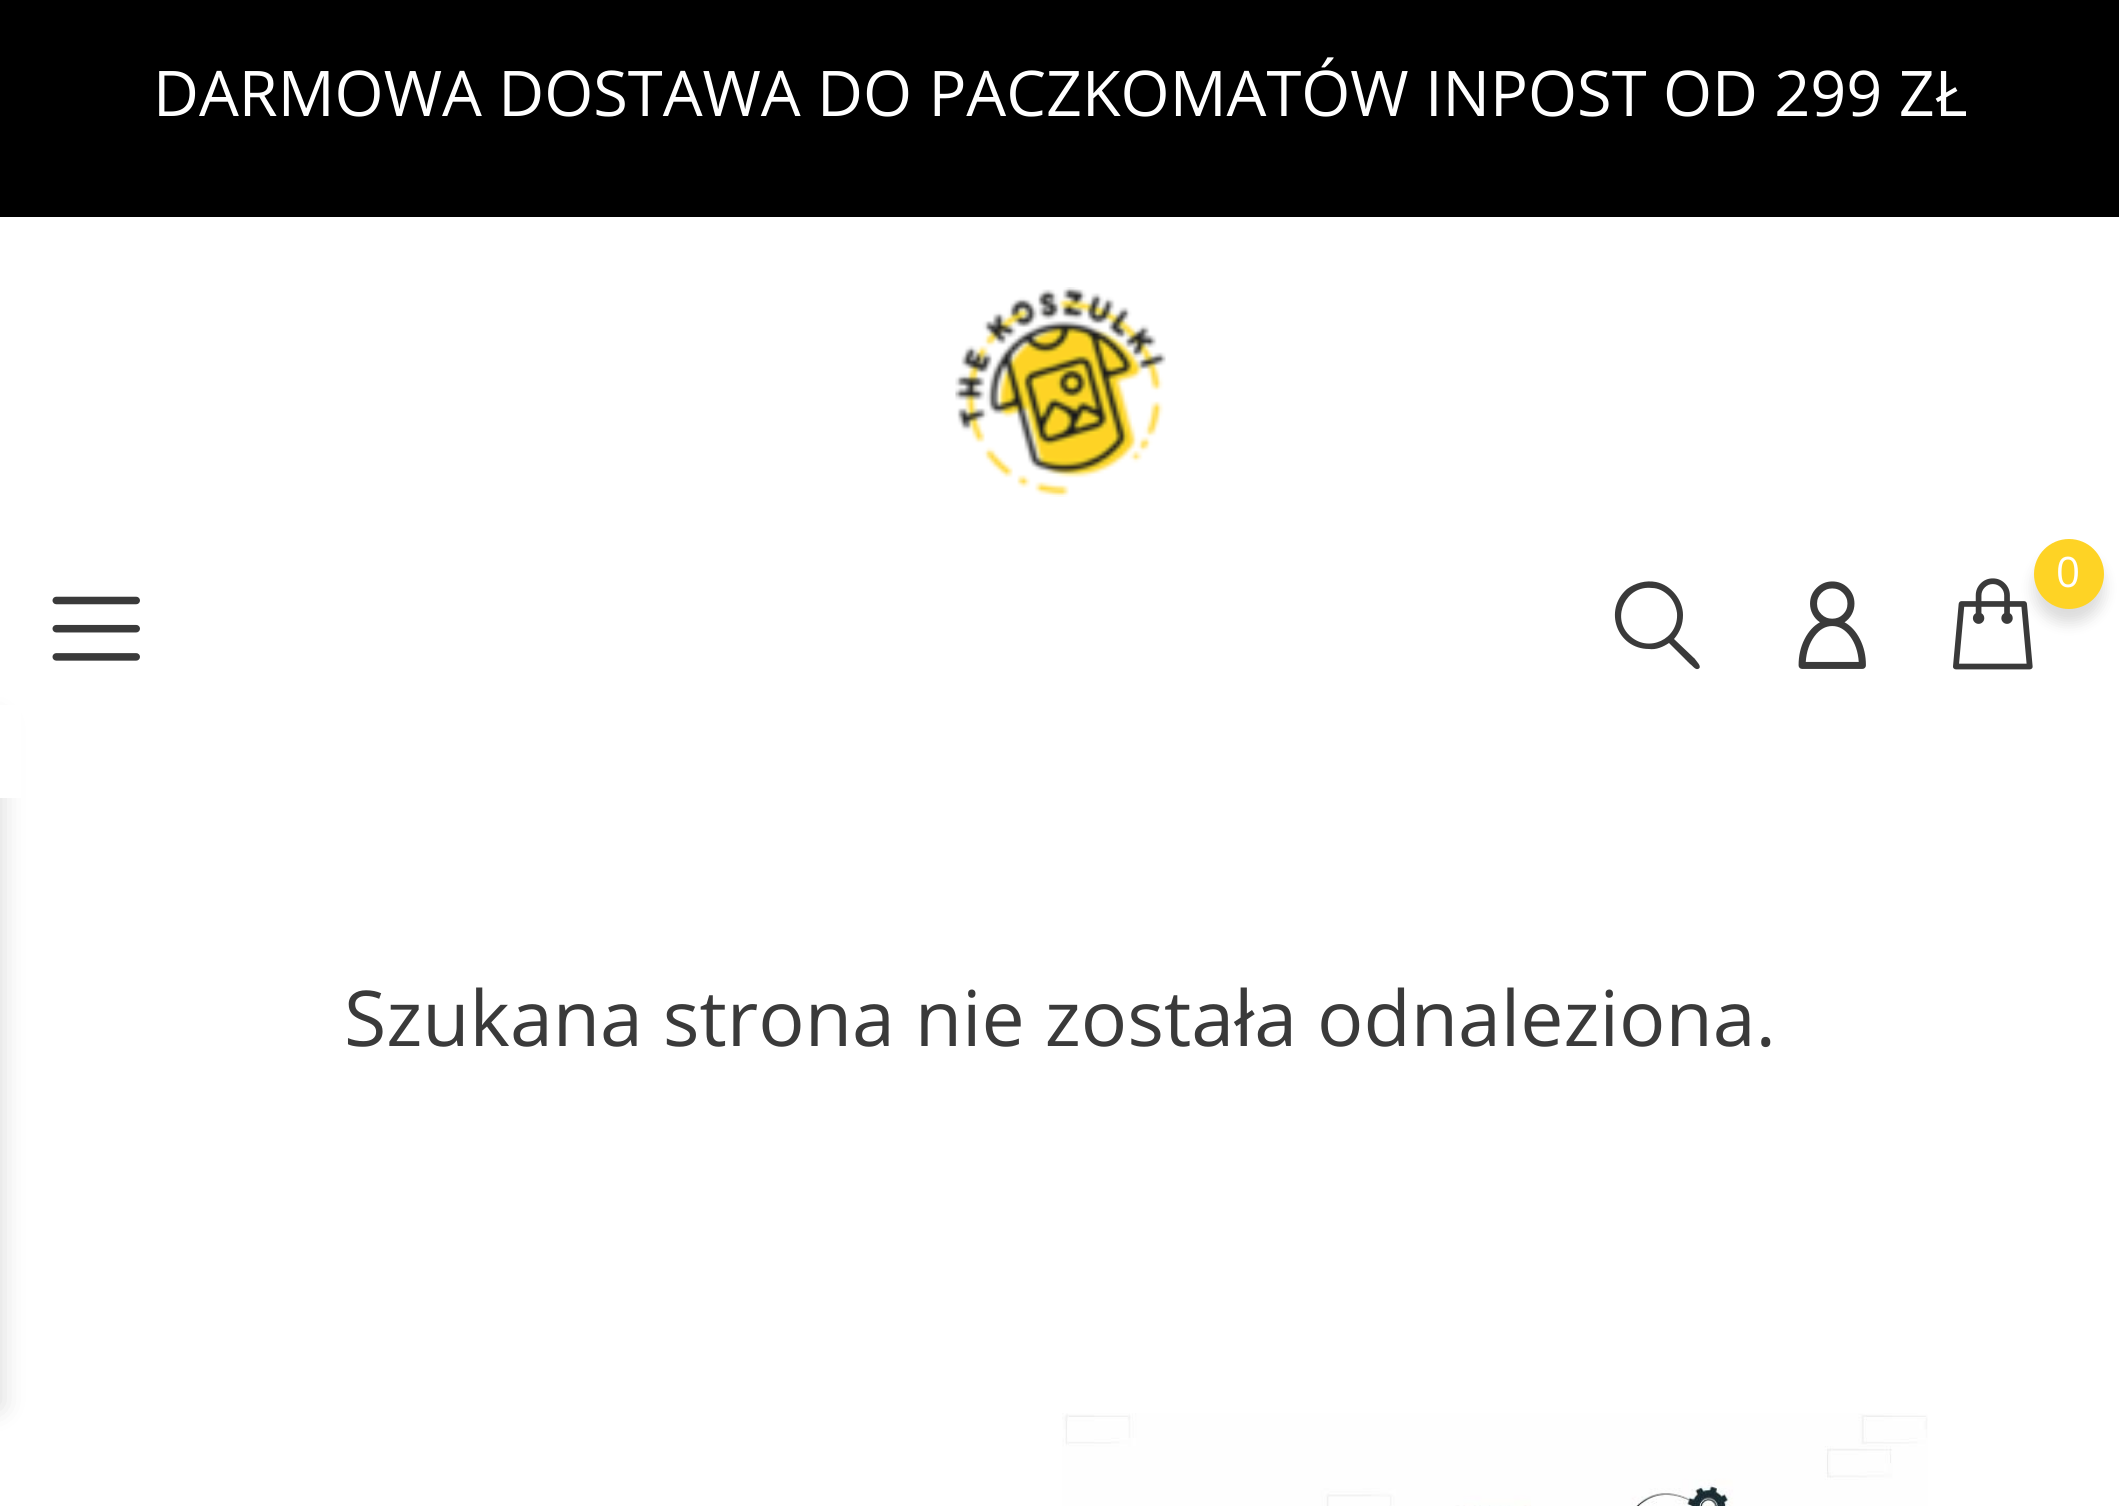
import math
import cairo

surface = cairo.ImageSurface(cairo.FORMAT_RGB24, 2119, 1506)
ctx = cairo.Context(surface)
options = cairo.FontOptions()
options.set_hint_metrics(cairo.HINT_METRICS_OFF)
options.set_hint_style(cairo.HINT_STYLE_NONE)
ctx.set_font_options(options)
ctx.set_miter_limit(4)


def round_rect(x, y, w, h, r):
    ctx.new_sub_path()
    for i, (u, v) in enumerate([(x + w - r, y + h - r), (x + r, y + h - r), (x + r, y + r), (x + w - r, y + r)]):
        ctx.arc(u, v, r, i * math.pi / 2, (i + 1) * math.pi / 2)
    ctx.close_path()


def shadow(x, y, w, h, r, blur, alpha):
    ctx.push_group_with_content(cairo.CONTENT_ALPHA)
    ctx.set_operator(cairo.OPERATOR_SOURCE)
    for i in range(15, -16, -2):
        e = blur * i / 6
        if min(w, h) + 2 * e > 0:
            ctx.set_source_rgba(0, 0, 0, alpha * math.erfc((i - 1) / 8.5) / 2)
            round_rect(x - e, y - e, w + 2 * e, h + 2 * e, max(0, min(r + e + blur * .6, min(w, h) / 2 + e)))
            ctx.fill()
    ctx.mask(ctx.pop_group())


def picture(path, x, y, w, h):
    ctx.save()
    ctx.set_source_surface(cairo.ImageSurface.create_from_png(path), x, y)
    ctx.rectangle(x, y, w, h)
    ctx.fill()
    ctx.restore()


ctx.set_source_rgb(1, 1, 1)
ctx.paint()
ctx.set_source_rgb(0, 0, 0)
ctx.rectangle(0, 0, 2119, 217)
ctx.fill()
ctx.select_font_face("Open Sans")
ctx.set_font_size(63)
ctx.set_source_rgb(1, 1, 1)
ctx.move_to(153, 116)
ctx.show_text("DARMOWA DOSTAWA DO PACZKOMATÓW INPOST OD 299 ZŁ")
ctx.set_source_rgb(0, 0, 0)
shadow(-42, 721, 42, 686, 0, 14, 0.16)
ctx.set_source_rgb(1, 1, 1)
ctx.rectangle(0, 705, 21, 93)
ctx.fill()
picture("img1.png", 955, 287, 211, 210)
picture("img2.png", 52, 596, 88, 65)
picture("img3.png", 1953, 578, 80, 92)
ctx.set_source_rgb(0, 0, 0)
shadow(2034, 553, 70, 70, 35, 7, 0.14)
ctx.set_source_rgb(0.996, 0.827, 0.145)
ctx.arc(2069, 574, 35, 0, 2 * math.pi)
ctx.fill()
ctx.set_font_size(42)
ctx.set_source_rgb(1, 1, 1)
ctx.move_to(2056, 587)
ctx.show_text("0")
ctx.set_source_rgb(0.227, 0.227, 0.227)
ctx.new_path()
ctx.move_to(1674, 639)
ctx.curve_to(1680, 632, 1683, 624, 1683, 615)
ctx.curve_to(1683, 600, 1671, 585, 1656, 582)
ctx.curve_to(1646, 580, 1635, 583, 1627, 589)
ctx.curve_to(1603, 610, 1617, 649, 1649, 649)
ctx.curve_to(1656, 650, 1663, 647, 1669, 643)
ctx.line_to(1690, 664)
ctx.curve_to(1692, 665, 1695, 670, 1698, 669)
ctx.curve_to(1703, 667, 1696, 661, 1695, 659)
ctx.close_path()
ctx.move_to(1629, 635)
ctx.curve_to(1611, 617, 1626, 585, 1652, 588)
ctx.curve_to(1658, 588, 1664, 591, 1669, 596)
ctx.curve_to(1673, 600, 1676, 606, 1677, 613)
ctx.curve_to(1679, 639, 1648, 654, 1629, 635)
ctx.close_path()
ctx.fill()
picture("img4.png", 1798, 581, 68, 88)
ctx.set_font_size(77)
ctx.move_to(344, 1046)
ctx.show_text("Szukana strona nie została odnaleziona.")
picture("img5.png", 1062, 1413, 866, 93)
surface.write_to_png("page.png")
